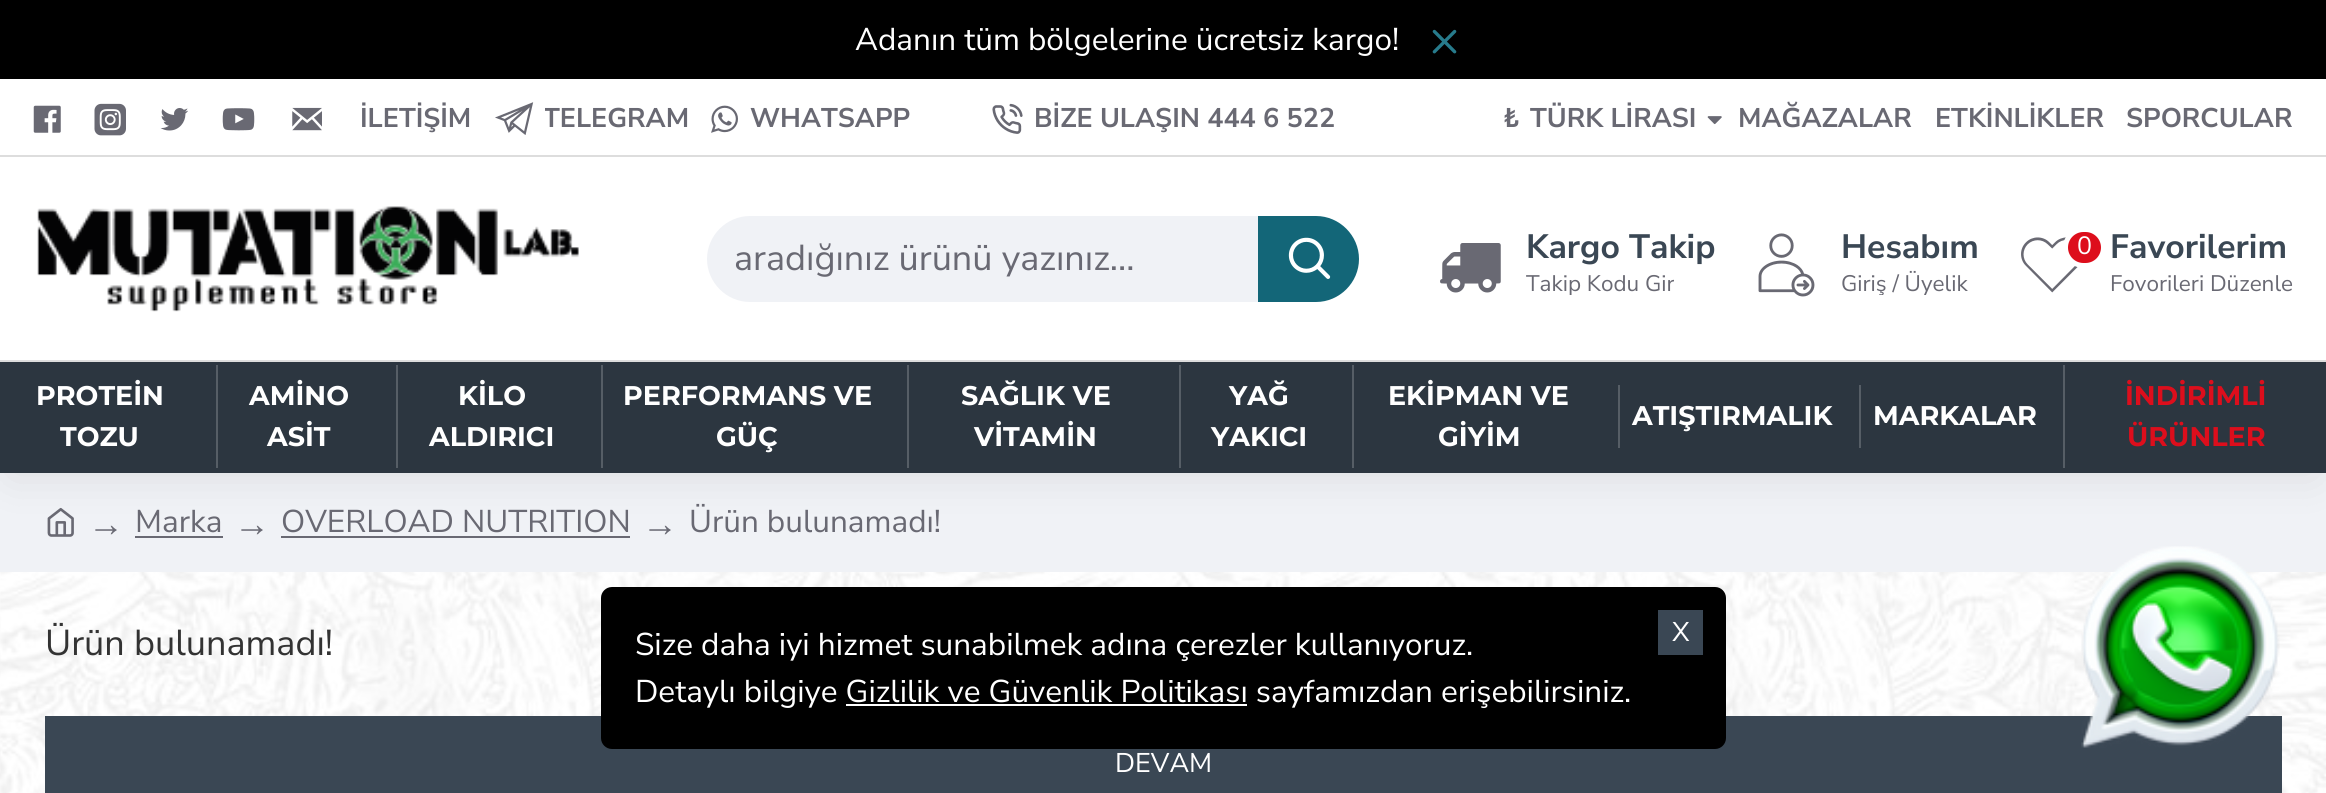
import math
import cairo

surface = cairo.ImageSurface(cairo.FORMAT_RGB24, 2326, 793)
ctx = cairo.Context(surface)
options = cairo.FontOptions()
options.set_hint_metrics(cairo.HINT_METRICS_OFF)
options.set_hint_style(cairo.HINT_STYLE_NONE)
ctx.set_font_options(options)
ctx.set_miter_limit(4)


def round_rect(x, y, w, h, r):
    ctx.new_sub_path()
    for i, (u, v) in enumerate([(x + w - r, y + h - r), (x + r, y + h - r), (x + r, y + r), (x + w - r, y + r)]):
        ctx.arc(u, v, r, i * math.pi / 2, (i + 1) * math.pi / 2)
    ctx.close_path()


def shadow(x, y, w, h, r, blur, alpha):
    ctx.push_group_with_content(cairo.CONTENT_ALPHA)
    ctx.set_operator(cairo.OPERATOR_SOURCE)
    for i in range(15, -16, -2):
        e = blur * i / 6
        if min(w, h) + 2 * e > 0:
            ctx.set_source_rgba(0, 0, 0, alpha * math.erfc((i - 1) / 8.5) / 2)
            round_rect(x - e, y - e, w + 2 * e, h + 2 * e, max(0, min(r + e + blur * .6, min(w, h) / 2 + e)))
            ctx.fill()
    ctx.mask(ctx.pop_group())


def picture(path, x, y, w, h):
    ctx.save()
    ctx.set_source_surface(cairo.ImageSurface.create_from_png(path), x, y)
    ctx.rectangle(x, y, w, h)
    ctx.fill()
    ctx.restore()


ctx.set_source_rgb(1, 1, 1)
ctx.paint()
picture("img1.png", 0, 572, 2326, 221)
ctx.set_source_rgb(0, 0, 0)
ctx.rectangle(0, 0, 2326, 79)
ctx.fill()
ctx.select_font_face("Nunito Sans")
ctx.set_font_size(31.5)
ctx.set_source_rgb(1, 1, 1)
ctx.move_to(855, 50)
ctx.show_text("Adanın tüm bölgelerine ücretsiz kargo!")
picture("img2.png", 1432, 29, 25, 25)
ctx.set_source_rgb(0.941, 0.949, 0.961)
ctx.rectangle(0, 473, 2326, 99)
ctx.fill()
picture("img17.png", 47, 507, 27, 30)
ctx.set_source_rgb(0.412, 0.412, 0.451)
ctx.rectangle(135, 536, 88, 2)
ctx.fill()
ctx.rectangle(281, 536, 349, 2)
ctx.fill()
ctx.set_source_rgb(0, 0, 0)
shadow(11, 101, 2304, 372, 0, 22.5, 0.1)
ctx.set_source_rgb(1, 1, 1)
ctx.rectangle(0, 79, 2326, 281)
ctx.fill()
picture("img3.png", 33, 105, 28, 28)
picture("img4.png", 94, 103, 32, 33)
picture("img5.png", 160, 108, 28, 23)
picture("img6.png", 222, 108, 33, 23)
picture("img7.png", 292, 107, 30, 24)
ctx.select_font_face("Nunito Sans", cairo.FONT_SLANT_NORMAL, cairo.FONT_WEIGHT_BOLD)
ctx.set_font_size(27)
ctx.set_source_rgb(0.412, 0.412, 0.451)
ctx.move_to(360, 127)
ctx.show_text("İLETİŞİM")
picture("img8.png", 495, 102, 39, 33)
ctx.save()
ctx.rectangle(545, 99, 144, 41)
ctx.clip()
ctx.move_to(543, 127)
ctx.show_text("TELEGRAM")
ctx.restore()
picture("img9.png", 711, 105, 27, 28)
ctx.move_to(750, 127)
ctx.show_text("WHATSAPP")
picture("img10.png", 992, 103, 31, 31)
ctx.move_to(1034, 127)
ctx.show_text("BİZE ULAŞIN 444 6 522")
ctx.move_to(1503, 127)
ctx.show_text("₺")
ctx.move_to(1530, 127)
ctx.show_text("TÜRK LİRASI")
picture("img11.png", 1707, 116, 15, 9)
ctx.move_to(1738, 127)
ctx.show_text("MAĞAZALAR")
ctx.move_to(1935, 127)
ctx.show_text("ETKİNLİKLER")
ctx.move_to(2126, 127)
ctx.show_text("SPORCULAR")
picture("img12.png", 37, 206, 542, 106)
ctx.set_source_rgb(0.941, 0.949, 0.961)
ctx.new_path()
ctx.move_to(750, 216)
ctx.line_to(1258, 216)
ctx.line_to(1258, 302)
ctx.line_to(750, 302)
ctx.curve_to(726.5, 302, 707, 282.5, 707, 259)
ctx.curve_to(707, 235.5, 726.5, 216, 750, 216)
ctx.close_path()
ctx.fill()
ctx.select_font_face("Nunito Sans")
ctx.set_font_size(36)
ctx.set_source_rgb(0.412, 0.412, 0.451)
ctx.move_to(734, 270)
ctx.show_text("aradığınız ürünü yazınız...")
ctx.set_source_rgb(0.078, 0.4, 0.471)
ctx.new_path()
ctx.move_to(1258, 216)
ctx.line_to(1316, 216)
ctx.curve_to(1339.5, 216, 1359, 235.5, 1359, 259)
ctx.curve_to(1359, 282.5, 1339.5, 302, 1316, 302)
ctx.line_to(1258, 302)
ctx.close_path()
ctx.fill()
picture("img13.png", 1288, 237, 43, 42)
picture("img14.png", 1440, 243, 61, 50)
ctx.select_font_face("Nunito Sans", cairo.FONT_SLANT_NORMAL, cairo.FONT_WEIGHT_BOLD)
ctx.set_font_size(33.75)
ctx.set_source_rgb(0.227, 0.278, 0.329)
ctx.move_to(1526, 258)
ctx.show_text("Kargo Takip")
ctx.save()
ctx.rectangle(1526, 223, 189, 72)
ctx.clip()
ctx.select_font_face("Nunito Sans")
ctx.set_font_size(22.5)
ctx.set_source_rgb(0.412, 0.412, 0.451)
ctx.move_to(1526, 291)
ctx.show_text("Takip Kodu Gir")
ctx.restore()
picture("img15.png", 1758, 233, 57, 64)
ctx.move_to(1841, 258)
ctx.show_text("Hesabım")
ctx.save()
ctx.rectangle(1841, 223, 137, 72)
ctx.clip()
ctx.select_font_face("Nunito Sans")
ctx.set_font_size(22.5)
ctx.set_source_rgb(0.412, 0.412, 0.451)
ctx.move_to(1841, 291)
ctx.show_text("Giriş / Üyelik")
ctx.restore()
picture("img16.png", 2021, 237, 57, 56)
ctx.set_source_rgb(0.867, 0.055, 0.11)
round_rect(2065.5, 229.5, 38, 36, 18)
ctx.fill_preserve()
ctx.set_source_rgb(1, 1, 1)
ctx.set_line_width(5)
ctx.stroke()
ctx.select_font_face("Nunito Sans")
ctx.set_font_size(25)
ctx.move_to(2077, 254)
ctx.show_text("0")
ctx.select_font_face("Nunito Sans", cairo.FONT_SLANT_NORMAL, cairo.FONT_WEIGHT_BOLD)
ctx.set_font_size(33.75)
ctx.set_source_rgb(0.227, 0.278, 0.329)
ctx.move_to(2110, 258)
ctx.show_text("Favorilerim")
ctx.select_font_face("Nunito Sans")
ctx.set_font_size(22.5)
ctx.set_source_rgb(0.412, 0.412, 0.451)
ctx.move_to(2110, 291)
ctx.show_text("Fovorileri Düzenle")
ctx.set_source_rgb(0.173, 0.212, 0.251)
ctx.rectangle(0, 362, 2326, 111)
ctx.fill()
ctx.set_source_rgb(0.867, 0.867, 0.867)
ctx.rectangle(0, 360, 2326, 2)
ctx.fill()
ctx.select_font_face("Montserrat", cairo.FONT_SLANT_NORMAL, cairo.FONT_WEIGHT_BOLD)
ctx.set_font_size(27)
ctx.set_source_rgb(1, 1, 1)
ctx.move_to(36, 405)
ctx.show_text("PROTEİN")
ctx.move_to(60, 446)
ctx.show_text("TOZU")
ctx.set_source_rgb(0.337, 0.369, 0.4)
ctx.rectangle(216, 365, 2, 103)
ctx.fill()
ctx.set_source_rgb(1, 1, 1)
ctx.move_to(249, 405)
ctx.show_text("AMİNO")
ctx.move_to(267, 446)
ctx.show_text("ASİT")
ctx.set_source_rgb(0.337, 0.369, 0.4)
ctx.rectangle(396, 365, 2, 103)
ctx.fill()
ctx.set_source_rgb(1, 1, 1)
ctx.move_to(458, 405)
ctx.show_text("KİLO")
ctx.move_to(429, 446)
ctx.show_text("ALDIRICI")
ctx.set_source_rgb(0.337, 0.369, 0.4)
ctx.rectangle(601, 365, 2, 103)
ctx.fill()
ctx.set_source_rgb(1, 1, 1)
ctx.move_to(623, 405)
ctx.show_text("PERFORMANS VE")
ctx.move_to(716, 446)
ctx.show_text("GÜÇ")
ctx.set_source_rgb(0.337, 0.369, 0.4)
ctx.rectangle(907, 365, 2, 103)
ctx.fill()
ctx.set_source_rgb(1, 1, 1)
ctx.move_to(961, 405)
ctx.show_text("SAĞLIK VE")
ctx.move_to(974, 446)
ctx.show_text("VİTAMİN")
ctx.set_source_rgb(0.337, 0.369, 0.4)
ctx.rectangle(1179, 365, 2, 103)
ctx.fill()
ctx.set_source_rgb(1, 1, 1)
ctx.move_to(1229, 405)
ctx.show_text("YAĞ")
ctx.move_to(1211, 446)
ctx.show_text("YAKICI")
ctx.set_source_rgb(0.337, 0.369, 0.4)
ctx.rectangle(1352, 365, 2, 103)
ctx.fill()
ctx.set_source_rgb(1, 1, 1)
ctx.move_to(1388, 405)
ctx.show_text("EKİPMAN VE")
ctx.move_to(1438, 446)
ctx.show_text("GİYİM")
ctx.set_source_rgb(0.337, 0.369, 0.4)
ctx.rectangle(1618, 385, 2, 63)
ctx.fill()
ctx.set_source_rgb(1, 1, 1)
ctx.move_to(1632, 425)
ctx.show_text("ATIŞTIRMALIK")
ctx.set_source_rgb(0.337, 0.369, 0.4)
ctx.rectangle(1859, 385, 2, 63)
ctx.fill()
ctx.set_source_rgb(1, 1, 1)
ctx.move_to(1873, 425)
ctx.show_text("MARKALAR")
ctx.set_source_rgb(0.337, 0.369, 0.4)
ctx.rectangle(2063, 365, 2, 103)
ctx.fill()
ctx.set_source_rgb(0.867, 0.055, 0.11)
ctx.move_to(2125, 405)
ctx.show_text("İNDİRİMLİ")
ctx.move_to(2127, 446)
ctx.show_text("ÜRÜNLER")
ctx.set_source_rgb(0.867, 0.867, 0.867)
ctx.rectangle(0, 155, 2326, 2)
ctx.fill()
ctx.select_font_face("Liberation Serif")
ctx.set_font_size(36)
ctx.set_source_rgb(0.412, 0.412, 0.451)
ctx.move_to(88, 536)
ctx.show_text("→")
ctx.select_font_face("Nunito Sans")
ctx.set_font_size(31.5)
ctx.move_to(135, 532)
ctx.show_text("Marka")
ctx.select_font_face("Liberation Serif")
ctx.set_font_size(36)
ctx.move_to(234, 536)
ctx.show_text("→")
ctx.select_font_face("Nunito Sans")
ctx.set_font_size(31.5)
ctx.move_to(281, 532)
ctx.show_text("OVERLOAD NUTRITION")
ctx.select_font_face("Liberation Serif")
ctx.set_font_size(36)
ctx.move_to(642, 536)
ctx.show_text("→")
ctx.select_font_face("Nunito Sans")
ctx.set_font_size(31.5)
ctx.move_to(689, 532)
ctx.show_text("Ürün bulunamadı!")
ctx.set_source_rgb(0.227, 0.278, 0.329)
ctx.rectangle(45, 716, 2237, 77)
ctx.fill()
ctx.set_source_rgb(0, 0, 0)
round_rect(601, 587, 1125, 162, 11)
ctx.fill()
ctx.set_source_rgb(1, 1, 1)
ctx.move_to(635, 655)
ctx.show_text("Size daha iyi hizmet sunabilmek adına çerezler kullanıyoruz.")
ctx.move_to(635, 702)
ctx.show_text("Detaylı bilgiye Gizlilik ve Güvenlik Politikası sayfamızdan erişebilirsiniz.")
ctx.rectangle(846, 704, 401, 2)
ctx.fill()
ctx.set_source_rgb(0.227, 0.278, 0.329)
ctx.rectangle(1658, 610, 45, 45)
ctx.fill()
ctx.set_font_size(27)
ctx.set_source_rgb(1, 1, 1)
ctx.move_to(1672, 641)
ctx.show_text("X")
picture("img18.png", 2081, 546, 199, 202)
ctx.set_font_size(36)
ctx.set_source_rgb(0.2, 0.2, 0.2)
ctx.move_to(45, 655)
ctx.show_text("Ürün bulunamadı!")
ctx.set_font_size(27)
ctx.set_source_rgb(1, 1, 1)
ctx.move_to(1115, 772)
ctx.show_text("DEVAM")
surface.write_to_png("page.png")
